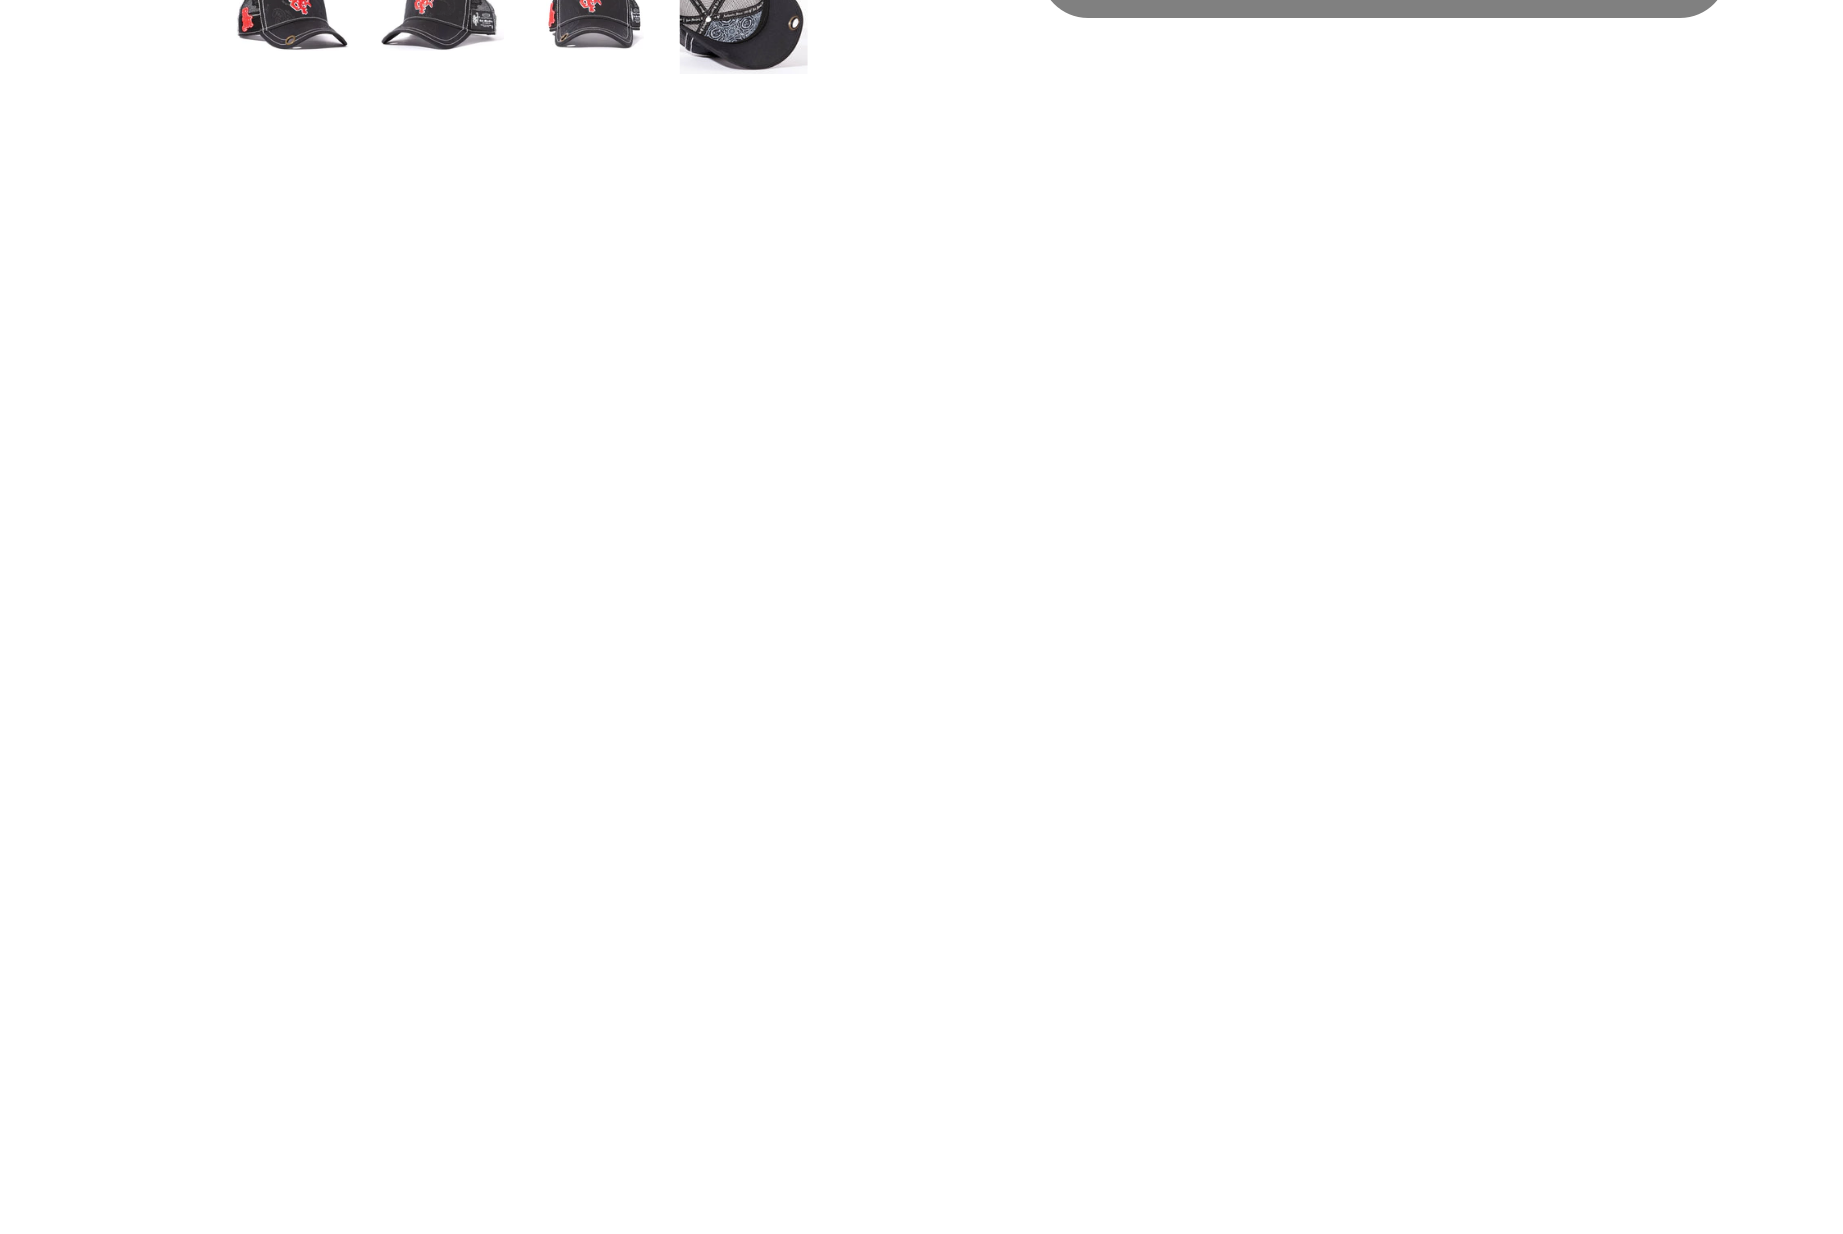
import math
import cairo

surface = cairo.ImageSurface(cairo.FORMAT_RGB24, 1843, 1234)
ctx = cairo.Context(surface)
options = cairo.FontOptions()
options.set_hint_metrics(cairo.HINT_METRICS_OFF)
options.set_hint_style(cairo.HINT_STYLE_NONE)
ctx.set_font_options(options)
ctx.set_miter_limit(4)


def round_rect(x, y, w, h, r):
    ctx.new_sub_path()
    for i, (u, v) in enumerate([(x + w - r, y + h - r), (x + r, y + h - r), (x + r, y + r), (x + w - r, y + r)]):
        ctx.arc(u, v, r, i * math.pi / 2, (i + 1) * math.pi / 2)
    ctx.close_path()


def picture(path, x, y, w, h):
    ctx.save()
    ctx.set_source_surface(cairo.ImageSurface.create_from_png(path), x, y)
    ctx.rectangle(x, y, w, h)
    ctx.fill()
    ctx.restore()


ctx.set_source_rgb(1, 1, 1)
ctx.paint()
ctx.set_source_rgb(0.502, 0.502, 0.502)
round_rect(1037.5, -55.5, 693, 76, 50.5)
ctx.fill_preserve()
ctx.set_source_rgb(1, 1, 1)
ctx.set_line_width(5)
ctx.stroke()
picture("img1.png", 236, 0, 113, 51)
picture("img2.png", 381, 0, 123, 51)
picture("img3.png", 546, 0, 98, 50)
picture("img4.png", 679, 0, 129, 74)
surface.write_to_png("page.png")
